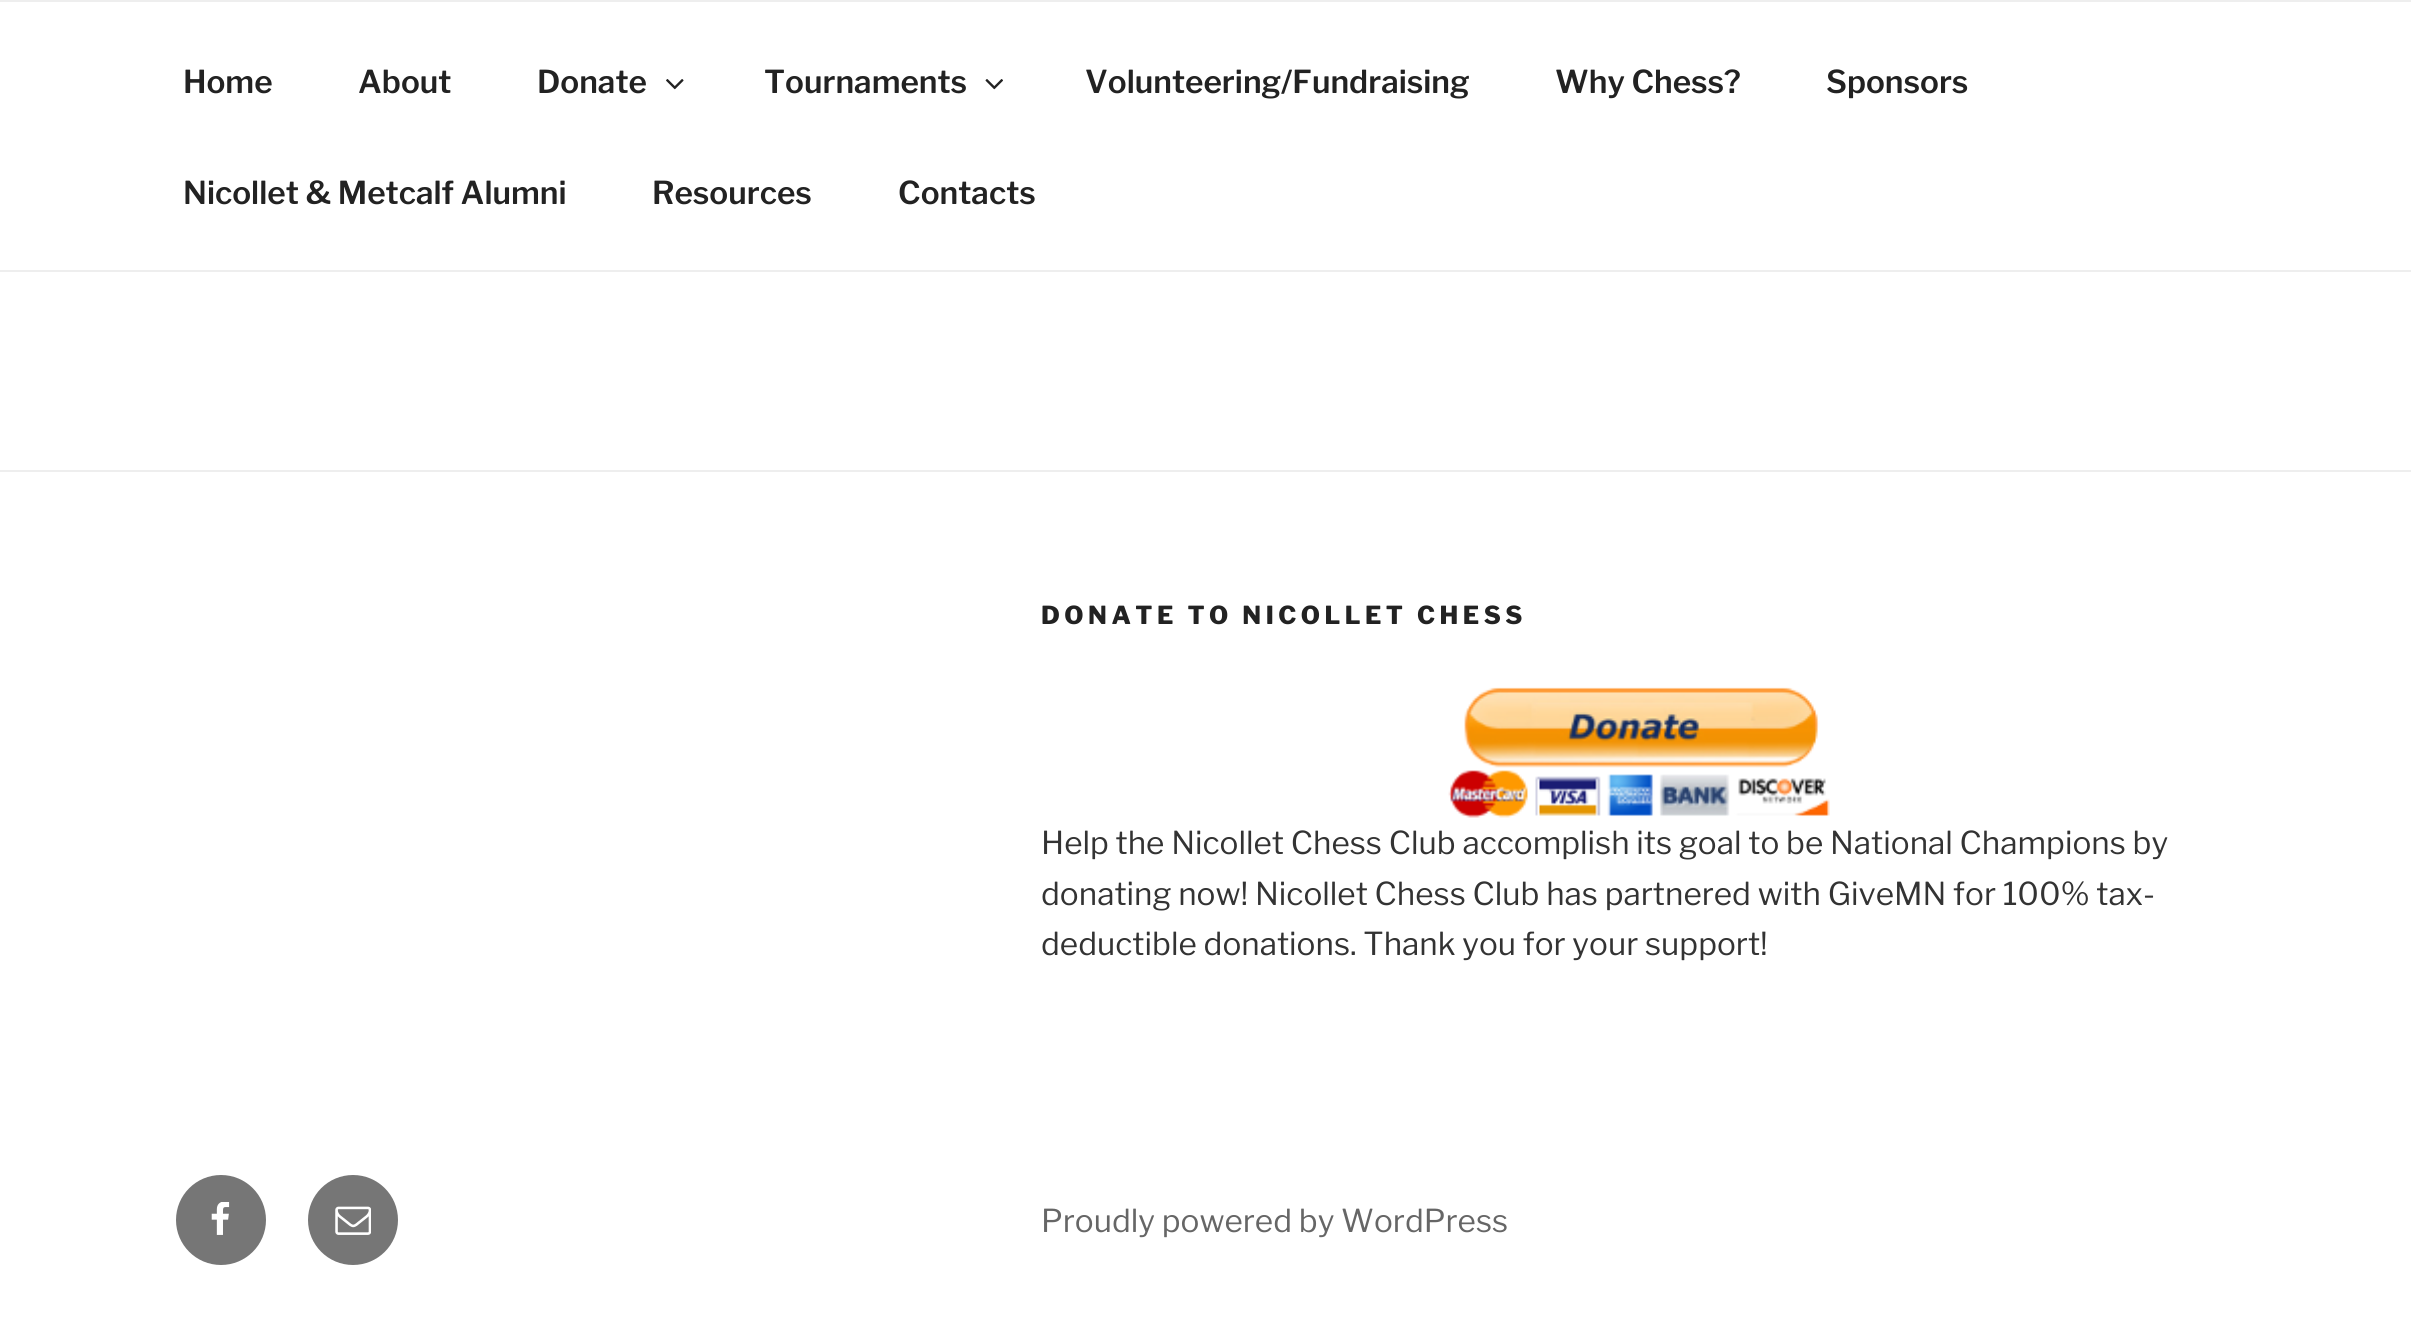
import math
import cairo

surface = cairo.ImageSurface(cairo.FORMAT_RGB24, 2411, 1328)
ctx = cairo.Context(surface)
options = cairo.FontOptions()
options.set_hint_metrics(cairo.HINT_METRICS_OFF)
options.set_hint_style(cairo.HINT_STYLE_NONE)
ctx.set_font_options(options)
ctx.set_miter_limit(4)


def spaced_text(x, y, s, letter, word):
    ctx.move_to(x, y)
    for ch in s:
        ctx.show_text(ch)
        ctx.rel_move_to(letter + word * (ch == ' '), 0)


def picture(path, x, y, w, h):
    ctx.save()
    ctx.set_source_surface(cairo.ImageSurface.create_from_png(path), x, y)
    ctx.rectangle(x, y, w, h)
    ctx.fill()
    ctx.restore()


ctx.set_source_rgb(1, 1, 1)
ctx.paint()
ctx.set_source_rgb(0.933, 0.933, 0.933)
ctx.rectangle(0, 0, 2411, 2)
ctx.fill()
ctx.rectangle(0, 270, 2411, 2)
ctx.fill()
ctx.select_font_face("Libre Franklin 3 Thin")
ctx.set_font_size(31.5)
ctx.set_source_rgb(0.133, 0.133, 0.133)
ctx.move_to(183, 93)
ctx.show_text("Home")
ctx.move_to(358, 93)
ctx.show_text("About")
ctx.move_to(537, 93)
ctx.show_text("Donate")
picture("img1.png", 666, 79, 18, 11)
ctx.move_to(764, 93)
ctx.show_text("Tournaments")
picture("img2.png", 985, 79, 18, 11)
ctx.move_to(1085, 93)
ctx.show_text("Volunteering/Fundraising")
ctx.move_to(1555, 93)
ctx.show_text("Why Chess?")
ctx.move_to(1826, 93)
ctx.show_text("Sponsors")
ctx.move_to(183, 204)
ctx.show_text("Nicollet & Metcalf Alumni")
ctx.move_to(652, 204)
ctx.show_text("Resources")
ctx.move_to(898, 204)
ctx.show_text("Contacts")
ctx.set_source_rgb(0.933, 0.933, 0.933)
ctx.rectangle(0, 470, 2411, 2)
ctx.fill()
ctx.select_font_face("Libre Franklin Thin")
ctx.set_font_size(24.75)
ctx.set_source_rgb(0.133, 0.133, 0.133)
spaced_text(1041, 624, "DONATE TO NICOLLET CHESS", 4.5, 0)
picture("img3.png", 1448, 687, 382, 131)
ctx.select_font_face("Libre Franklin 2 Thin")
ctx.set_font_size(31.5)
ctx.set_source_rgb(0.2, 0.2, 0.2)
ctx.move_to(1041, 854)
ctx.show_text("Help the Nicollet Chess Club accomplish its goal to be National Champions by")
ctx.move_to(1041, 905)
ctx.show_text("donating now! Nicollet Chess Club has partnered with GiveMN for 100% tax-")
ctx.move_to(1041, 955)
ctx.show_text("deductible donations. Thank you for your support!")
ctx.set_source_rgb(0.463, 0.463, 0.463)
ctx.new_path()
ctx.arc(221, 1220, 45, 0, 2 * math.pi)
ctx.fill()
picture("img4.png", 211, 1202, 19, 33)
ctx.arc(353, 1220, 45, 0, 2 * math.pi)
ctx.fill()
picture("img5.png", 335, 1206, 36, 29)
ctx.set_source_rgb(0.4, 0.4, 0.4)
ctx.move_to(1041, 1232)
ctx.show_text("Proudly powered by WordPress")
surface.write_to_png("page.png")
